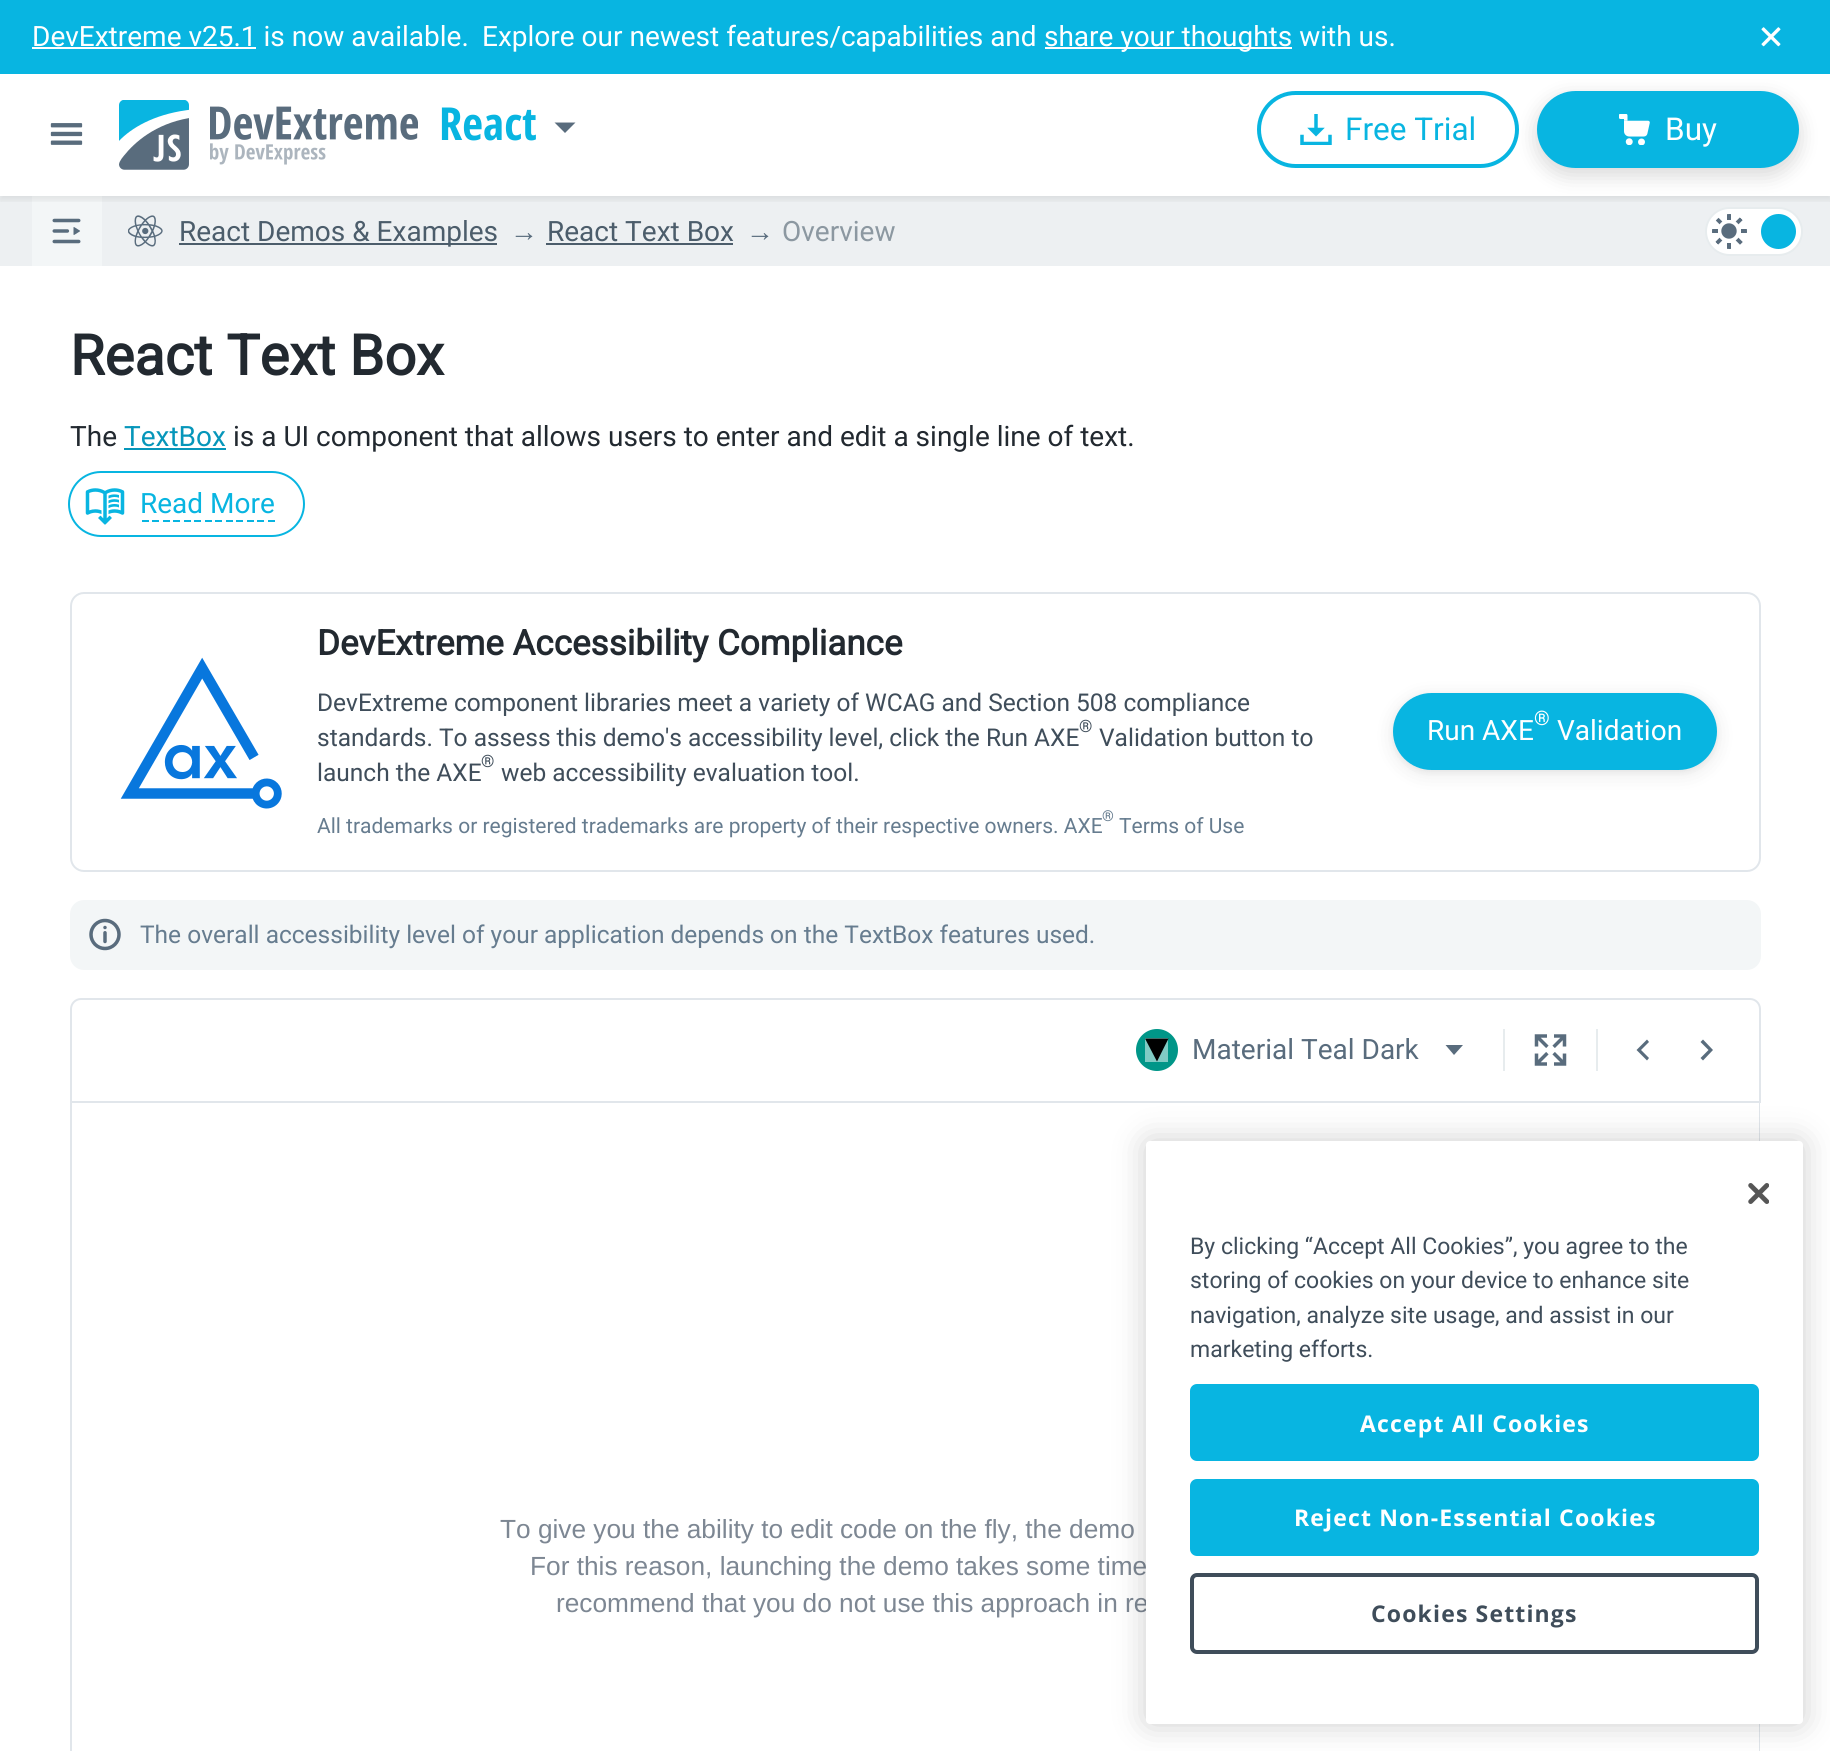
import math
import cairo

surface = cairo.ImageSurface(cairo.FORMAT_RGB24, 1830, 1751)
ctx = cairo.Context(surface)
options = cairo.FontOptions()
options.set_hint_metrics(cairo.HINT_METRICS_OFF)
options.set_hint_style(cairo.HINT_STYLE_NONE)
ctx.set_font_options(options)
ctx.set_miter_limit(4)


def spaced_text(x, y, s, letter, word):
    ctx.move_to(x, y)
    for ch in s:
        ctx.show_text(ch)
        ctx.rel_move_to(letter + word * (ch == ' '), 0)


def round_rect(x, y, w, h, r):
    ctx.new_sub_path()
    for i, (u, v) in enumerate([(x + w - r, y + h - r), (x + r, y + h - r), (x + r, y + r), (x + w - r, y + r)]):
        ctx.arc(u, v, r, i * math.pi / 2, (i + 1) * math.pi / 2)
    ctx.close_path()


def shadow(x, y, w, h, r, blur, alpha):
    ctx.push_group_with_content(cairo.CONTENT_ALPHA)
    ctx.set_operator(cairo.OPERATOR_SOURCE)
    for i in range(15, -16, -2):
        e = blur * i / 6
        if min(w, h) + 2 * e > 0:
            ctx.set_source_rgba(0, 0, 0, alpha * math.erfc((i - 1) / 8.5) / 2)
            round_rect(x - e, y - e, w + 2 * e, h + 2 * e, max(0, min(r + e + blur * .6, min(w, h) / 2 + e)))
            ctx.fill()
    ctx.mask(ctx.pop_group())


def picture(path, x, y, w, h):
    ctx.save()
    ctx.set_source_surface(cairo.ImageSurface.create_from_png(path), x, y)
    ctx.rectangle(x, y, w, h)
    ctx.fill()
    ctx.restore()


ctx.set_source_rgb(1, 1, 1)
ctx.paint()
ctx.set_source_rgb(0.929, 0.941, 0.949)
ctx.rectangle(0, 196, 1830, 70)
ctx.fill()
ctx.set_source_rgb(0.953, 0.961, 0.965)
ctx.rectangle(32, 196, 70, 70)
ctx.fill()
ctx.set_source_rgb(1, 1, 1)
round_rect(1706, 208, 96, 47, 23.5)
ctx.fill_preserve()
ctx.set_source_rgb(0.906, 0.922, 0.933)
ctx.stroke()
ctx.save()
ctx.rectangle(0, 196, 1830, 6)
ctx.clip()
ctx.set_source_rgb(0, 0, 0)
shadow(0, 77, 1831, 123, 0, 3.5, 0.08)
ctx.restore()
round_rect(1259, 93, 258, 73, 36.5)
ctx.set_source_rgb(0.035, 0.71, 0.882)
ctx.set_line_width(4)
ctx.stroke()
ctx.set_source_rgb(0, 0, 0)
shadow(1537, 98, 262, 77, 38.5, 10.5, 0.16)
ctx.set_source_rgb(0.035, 0.71, 0.882)
ctx.rectangle(0, 0, 1830, 74)
ctx.fill()
ctx.select_font_face("Roboto")
ctx.set_font_size(28)
ctx.set_source_rgb(1, 1, 1)
ctx.move_to(32, 46)
ctx.show_text("DevExtreme v25.1 is now available.")
ctx.rectangle(32, 47, 224, 2)
ctx.fill()
ctx.move_to(482, 46)
ctx.show_text("Explore our newest features/capabilities and")
ctx.rectangle(1045, 47, 247, 2)
ctx.fill()
ctx.move_to(1044, 46)
ctx.show_text("share your thoughts with us.")
picture("img1.png", 1761, 27, 20, 20)
picture("img2.png", 50, 123, 33, 22)
picture("img3.png", 119, 100, 70, 70)
picture("img4.png", 210, 106, 208, 59)
ctx.select_font_face("Open Sans", cairo.FONT_SLANT_NORMAL, cairo.FONT_WEIGHT_BOLD)
ctx.set_font_size(45.5)
ctx.set_source_rgb(0.035, 0.71, 0.882)
ctx.move_to(439, 140)
ctx.show_text("React")
ctx.set_source_rgb(0.349, 0.424, 0.49)
ctx.new_path()
ctx.move_to(554.5, 122.5)
ctx.line_to(575.5, 122.5)
ctx.line_to(565, 133)
ctx.close_path()
ctx.fill()
picture("img5.png", 1300, 114, 32, 31)
ctx.select_font_face("Roboto")
ctx.set_font_size(31.5)
ctx.set_source_rgb(0.035, 0.71, 0.882)
ctx.move_to(1345, 140)
ctx.show_text("Free Trial")
round_rect(1539, 93, 258, 73, 36.5)
ctx.fill_preserve()
ctx.stroke()
picture("img6.png", 1619, 114, 31, 31)
ctx.set_source_rgb(1, 1, 1)
ctx.move_to(1665, 140)
ctx.show_text("Buy")
picture("img7.png", 52, 218, 29, 26)
picture("img8.png", 128, 215, 35, 32)
ctx.set_source_rgb(0.298, 0.365, 0.42)
ctx.rectangle(179, 243, 318, 2)
ctx.fill()
ctx.set_font_size(28)
ctx.move_to(179, 241)
ctx.show_text("React Demos & Examples")
ctx.select_font_face("Liberation Sans")
ctx.set_source_rgb(0.349, 0.424, 0.49)
ctx.move_to(510, 241)
ctx.show_text("→")
ctx.select_font_face("Roboto")
ctx.set_source_rgb(0.298, 0.365, 0.42)
ctx.move_to(547, 241)
ctx.show_text("React Text Box")
ctx.rectangle(546, 243, 187, 2)
ctx.fill()
ctx.select_font_face("Liberation Sans")
ctx.set_source_rgb(0.349, 0.424, 0.49)
ctx.move_to(746, 241)
ctx.show_text("→")
ctx.select_font_face("Roboto")
ctx.set_source_rgb(0.549, 0.596, 0.631)
ctx.move_to(782, 241)
ctx.show_text("Overview")
picture("img9.png", 1712, 214, 35, 35)
ctx.set_source_rgb(0.035, 0.71, 0.882)
ctx.arc(1778.5, 231.5, 17.5, 0, 2 * math.pi)
ctx.fill()
ctx.select_font_face("Roboto", cairo.FONT_SLANT_NORMAL, cairo.FONT_WEIGHT_BOLD)
ctx.set_font_size(56)
ctx.set_source_rgb(0.133, 0.161, 0.188)
ctx.move_to(70, 375)
ctx.show_text("React Text Box")
ctx.select_font_face("Roboto")
ctx.set_font_size(28)
ctx.move_to(70, 446)
ctx.show_text("The")
ctx.set_source_rgb(0.027, 0.588, 0.729)
ctx.move_to(124, 446)
ctx.show_text("TextBox")
ctx.rectangle(124, 448, 102, 2)
ctx.fill()
ctx.set_source_rgb(0.133, 0.161, 0.188)
ctx.move_to(233, 446)
ctx.show_text("is a UI component that allows users to enter and edit a single line of text.")
ctx.set_source_rgb(0.035, 0.71, 0.882)
ctx.rectangle(142, 520, 7, 2)
ctx.fill()
ctx.rectangle(152, 520, 7, 2)
ctx.fill()
ctx.rectangle(163, 520, 7, 2)
ctx.fill()
ctx.rectangle(173, 520, 7, 2)
ctx.fill()
ctx.rectangle(184, 520, 7, 2)
ctx.fill()
ctx.rectangle(194, 520, 7, 2)
ctx.fill()
ctx.rectangle(205, 520, 7, 2)
ctx.fill()
ctx.rectangle(215, 520, 7, 2)
ctx.fill()
ctx.rectangle(226, 520, 7, 2)
ctx.fill()
ctx.rectangle(236, 520, 7, 2)
ctx.fill()
ctx.rectangle(247, 520, 7, 2)
ctx.fill()
ctx.rectangle(257, 520, 7, 2)
ctx.fill()
ctx.rectangle(268, 520, 7, 2)
ctx.fill()
round_rect(69, 472, 235, 64, 32)
ctx.set_line_width(2)
ctx.stroke()
picture("img10.png", 85, 488, 40, 37)
ctx.move_to(140, 513)
ctx.show_text("Read More")
round_rect(71, 593, 1689, 278, 13)
ctx.set_source_rgb(0.882, 0.902, 0.918)
ctx.stroke()
picture("img11.png", 120, 657, 162, 152)
ctx.select_font_face("Roboto", cairo.FONT_SLANT_NORMAL, cairo.FONT_WEIGHT_BOLD)
ctx.set_font_size(35)
ctx.set_source_rgb(0.133, 0.161, 0.188)
ctx.move_to(317, 655)
ctx.show_text("DevExtreme Accessibility Compliance")
ctx.select_font_face("Roboto")
ctx.set_font_size(24.5)
ctx.set_source_rgb(0.247, 0.302, 0.353)
ctx.move_to(317, 711)
ctx.show_text("DevExtreme component libraries meet a variety of WCAG and Section 508 compliance")
ctx.move_to(317, 746)
ctx.show_text("standards. To assess this demo's accessibility level, click the Run AXE")
ctx.set_font_size(17)
ctx.move_to(1079, 732)
ctx.show_text("®")
ctx.set_font_size(24.5)
ctx.move_to(1099, 746)
ctx.show_text("Validation button to")
ctx.move_to(317, 781)
ctx.show_text("launch the AXE")
ctx.set_font_size(17)
ctx.move_to(481, 767)
ctx.show_text("®")
ctx.set_font_size(24.5)
ctx.move_to(501, 781)
ctx.show_text("web accessibility evaluation tool.")
ctx.set_font_size(21)
ctx.set_source_rgb(0.4, 0.486, 0.561)
ctx.move_to(317, 833)
ctx.show_text("All trademarks or registered trademarks are property of their respective owners. AXE")
ctx.set_font_size(15)
ctx.move_to(1102, 821)
ctx.show_text("®")
ctx.set_font_size(21)
ctx.move_to(1119, 833)
ctx.show_text("Terms of Use")
ctx.set_source_rgb(0, 0, 0)
shadow(1393, 695, 324, 77, 38.5, 3.5, 0.06)
shadow(1393, 697, 324, 77, 38.5, 10.5, 0.08)
ctx.set_source_rgb(0.035, 0.71, 0.882)
round_rect(1393, 693, 324, 77, 38.5)
ctx.fill()
ctx.set_font_size(28)
ctx.set_source_rgb(1, 1, 1)
ctx.move_to(1427, 740)
ctx.show_text("Run AXE")
ctx.set_font_size(20)
ctx.move_to(1534, 725)
ctx.show_text("®")
ctx.set_font_size(28)
ctx.move_to(1557, 740)
ctx.show_text("Validation")
ctx.set_source_rgb(0.953, 0.961, 0.965)
round_rect(70, 900, 1691, 70, 14)
ctx.fill()
picture("img12.png", 89, 918, 32, 33)
ctx.set_font_size(24.5)
ctx.set_source_rgb(0.4, 0.486, 0.561)
ctx.move_to(140, 943)
ctx.show_text("The overall accessibility level of your application depends on the TextBox features used.")
ctx.set_source_rgb(0.882, 0.902, 0.918)
ctx.set_fill_rule(cairo.FILL_RULE_EVEN_ODD)
ctx.new_path()
ctx.move_to(70, 1102)
ctx.line_to(1760, 1102)
ctx.line_to(1760, 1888)
ctx.curve_to(1760, 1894, 1756, 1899, 1750, 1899)
ctx.line_to(80, 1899)
ctx.curve_to(75, 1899, 70, 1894, 70, 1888)
ctx.close_path()
ctx.move_to(72, 1102)
ctx.line_to(1759, 1102)
ctx.line_to(1759, 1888)
ctx.curve_to(1759, 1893, 1755, 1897, 1750, 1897)
ctx.line_to(80, 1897)
ctx.curve_to(76, 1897, 72, 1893, 72, 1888)
ctx.close_path()
ctx.fill()
ctx.set_source_rgb(1, 1, 1)
ctx.new_path()
ctx.move_to(81, 999)
ctx.line_to(1750, 999)
ctx.curve_to(1755.5, 999, 1760, 1003.5, 1760, 1009)
ctx.line_to(1760, 1102)
ctx.line_to(71, 1102)
ctx.line_to(71, 1009)
ctx.curve_to(71, 1003.5, 75.5, 999, 81, 999)
ctx.close_path()
ctx.fill_preserve()
ctx.set_source_rgb(0.882, 0.902, 0.918)
ctx.stroke()
ctx.set_source_rgb(0, 0.588, 0.533)
ctx.arc(1157, 1050, 21, 0, 2 * math.pi)
ctx.fill()
ctx.set_source_rgb(0.502, 0.796, 0.769)
ctx.rectangle(1145, 1038, 23, 24)
ctx.fill()
ctx.set_source_rgb(0, 0, 0)
ctx.set_fill_rule(cairo.FILL_RULE_WINDING)
ctx.new_path()
ctx.move_to(1157, 1061.5)
ctx.line_to(1145, 1038.5)
ctx.line_to(1168.5, 1038.5)
ctx.close_path()
ctx.fill()
ctx.set_font_size(28)
ctx.set_source_rgb(0.349, 0.424, 0.49)
ctx.move_to(1192, 1059)
ctx.show_text("Material Teal Dark")
ctx.new_path()
ctx.move_to(1454, 1055)
ctx.line_to(1463, 1045)
ctx.line_to(1445.5, 1045)
ctx.close_path()
ctx.fill()
ctx.set_source_rgb(0.906, 0.922, 0.933)
ctx.rectangle(1503, 1029, 2, 42)
ctx.fill()
picture("img13.png", 1534, 1034, 33, 32)
ctx.rectangle(1596, 1029, 2, 42)
ctx.fill()
ctx.set_source_rgb(0.349, 0.424, 0.49)
ctx.new_path()
ctx.move_to(1649, 1042)
ctx.line_to(1641, 1050)
ctx.line_to(1649, 1058)
ctx.line_to(1647, 1060.5)
ctx.line_to(1636.5, 1050)
ctx.line_to(1647, 1039.5)
ctx.close_path()
ctx.fill()
ctx.new_path()
ctx.move_to(1700.5, 1042)
ctx.line_to(1708.5, 1050)
ctx.line_to(1700.5, 1058)
ctx.line_to(1703, 1060.5)
ctx.line_to(1713, 1050)
ctx.line_to(1703, 1039.5)
ctx.close_path()
ctx.fill()
ctx.select_font_face("Liberation Sans")
ctx.set_font_size(26.25)
ctx.set_source_rgb(0.49, 0.529, 0.576)
ctx.move_to(500, 1538)
ctx.show_text("To give you the ability to edit code on the fly, the demo")
ctx.move_to(530, 1575)
ctx.show_text("For this reason, launching the demo takes some time")
ctx.move_to(556, 1612)
ctx.show_text("recommend that you do not use this approach in re")
ctx.set_source_rgb(0, 0, 0)
shadow(1146, 1141, 657, 583, 4, 16, 0.2)
ctx.set_source_rgb(1, 1, 1)
round_rect(1146, 1141, 657, 583, 4)
ctx.fill()
picture("img14.png", 1748, 1183, 21, 21)
ctx.select_font_face("Roboto")
ctx.set_font_size(23)
ctx.set_source_rgb(0.247, 0.302, 0.353)
ctx.move_to(1190, 1254)
ctx.show_text("By clicking “Accept All Cookies”, you agree to the")
ctx.move_to(1190, 1288)
ctx.show_text("storing of cookies on your device to enhance site")
ctx.move_to(1190, 1323)
ctx.show_text("navigation, analyze site usage, and assist in our")
ctx.move_to(1190, 1357)
ctx.show_text("marketing efforts.")
ctx.set_source_rgb(0.035, 0.71, 0.882)
round_rect(1191, 1385, 567, 75, 6)
ctx.fill_preserve()
ctx.stroke()
ctx.select_font_face("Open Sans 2", cairo.FONT_SLANT_NORMAL, cairo.FONT_WEIGHT_BOLD)
ctx.set_source_rgb(1, 1, 1)
spaced_text(1360, 1432, "Accept All Cookies", 1.15, 0)
ctx.set_source_rgb(0.035, 0.71, 0.882)
round_rect(1191, 1480, 567, 75, 6)
ctx.fill_preserve()
ctx.stroke()
ctx.set_source_rgb(1, 1, 1)
spaced_text(1294, 1526, "Reject Non-Essential Cookies", 1.15, 0)
round_rect(1192, 1575, 565, 77, 5)
ctx.set_source_rgb(0.247, 0.302, 0.353)
ctx.set_line_width(4)
ctx.stroke()
spaced_text(1371, 1622, "Cookies Settings", 1.15, 0)
surface.write_to_png("page.png")
